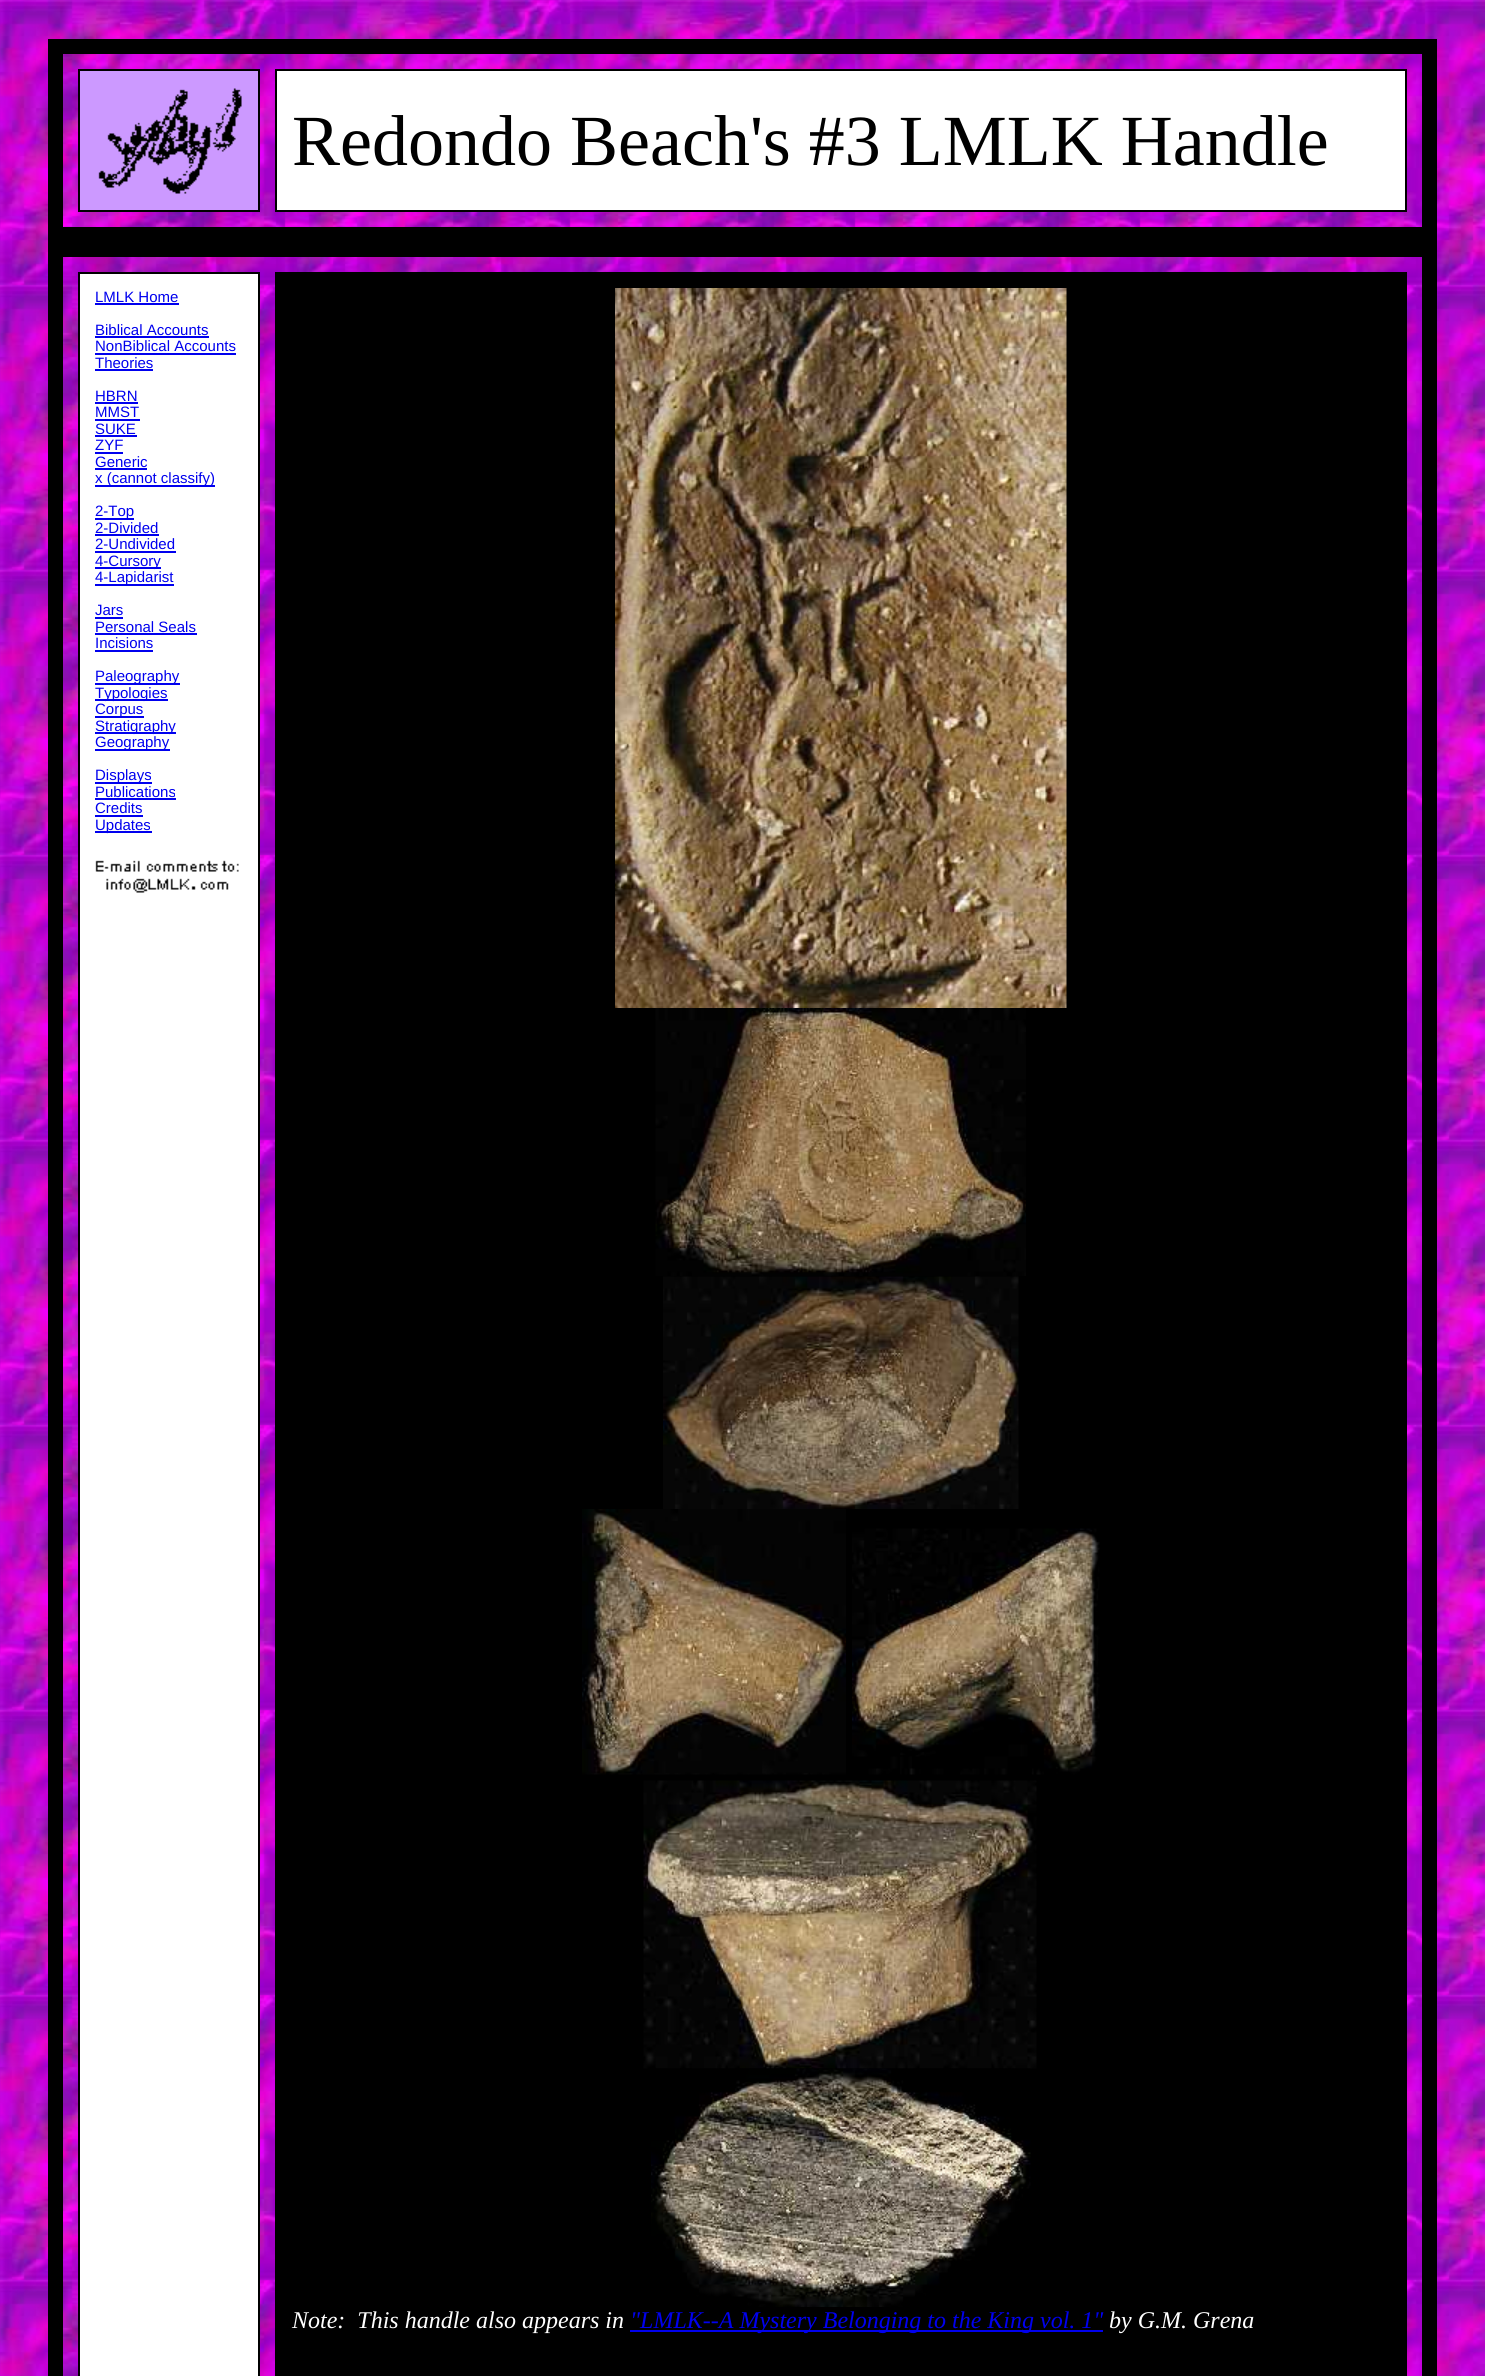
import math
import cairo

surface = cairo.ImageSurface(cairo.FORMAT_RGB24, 1485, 2376)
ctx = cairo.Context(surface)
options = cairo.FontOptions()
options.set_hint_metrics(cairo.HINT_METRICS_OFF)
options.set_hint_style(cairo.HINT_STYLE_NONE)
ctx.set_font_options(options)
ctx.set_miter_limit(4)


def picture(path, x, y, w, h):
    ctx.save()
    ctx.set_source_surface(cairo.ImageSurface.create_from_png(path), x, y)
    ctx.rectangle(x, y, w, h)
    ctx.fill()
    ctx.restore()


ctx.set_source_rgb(1, 1, 1)
ctx.paint()
picture("img1.png", 0, 0, 1485, 2376)
ctx.rectangle(55.5, 46.5, 1374, 188)
ctx.set_source_rgb(0, 0, 0)
ctx.set_line_width(15)
ctx.stroke()
ctx.set_source_rgb(0.8, 0.6, 1)
ctx.rectangle(79, 70, 180, 141)
ctx.fill_preserve()
ctx.set_source_rgb(0, 0, 0)
ctx.set_line_width(2)
ctx.stroke()
picture("img2.png", 98, 88, 144, 106)
ctx.set_source_rgb(1, 1, 1)
ctx.rectangle(276, 70, 1130, 141)
ctx.fill_preserve()
ctx.set_source_rgb(0, 0, 0)
ctx.stroke()
ctx.select_font_face("Liberation Serif")
ctx.set_font_size(72)
ctx.move_to(292, 165)
ctx.show_text("Redondo Beach's #3 LMLK Handle")
ctx.rectangle(55.5, 249.5, 1374, 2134)
ctx.set_line_width(15)
ctx.stroke()
ctx.set_source_rgb(1, 1, 1)
ctx.rectangle(79, 273, 180, 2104)
ctx.fill_preserve()
ctx.set_source_rgb(0, 0, 0)
ctx.set_line_width(2)
ctx.stroke()
ctx.select_font_face("Liberation Sans")
ctx.set_font_size(15)
ctx.set_source_rgb(0, 0, 0.933)
ctx.move_to(95, 302)
ctx.show_text("LMLK Home")
ctx.rectangle(95, 303, 84, 2)
ctx.fill()
ctx.move_to(95, 335)
ctx.show_text("Biblical Accounts")
ctx.rectangle(95, 336, 114, 2)
ctx.fill()
ctx.move_to(95, 351)
ctx.show_text("NonBiblical Accounts")
ctx.rectangle(95, 353, 141, 2)
ctx.fill()
ctx.move_to(95, 368)
ctx.show_text("Theories")
ctx.rectangle(95, 369, 58, 2)
ctx.fill()
ctx.move_to(95, 401)
ctx.show_text("HBRN")
ctx.rectangle(95, 402, 43, 2)
ctx.fill()
ctx.move_to(95, 417)
ctx.show_text("MMST")
ctx.rectangle(95, 419, 45, 2)
ctx.fill()
ctx.move_to(95, 434)
ctx.show_text("SUKE")
ctx.rectangle(95, 435, 42, 2)
ctx.fill()
ctx.move_to(95, 450)
ctx.show_text("ZYF")
ctx.rectangle(95, 452, 28, 2)
ctx.fill()
ctx.move_to(95, 467)
ctx.show_text("Generic")
ctx.rectangle(95, 468, 52, 2)
ctx.fill()
ctx.rectangle(95, 485, 120, 2)
ctx.fill()
ctx.move_to(95, 483)
ctx.show_text("x (cannot classify)")
ctx.rectangle(95, 518, 39, 2)
ctx.fill()
ctx.move_to(95, 516)
ctx.show_text("2-Top")
ctx.move_to(95, 533)
ctx.show_text("2-Divided")
ctx.rectangle(95, 534, 64, 2)
ctx.fill()
ctx.move_to(95, 549)
ctx.show_text("2-Undivided")
ctx.rectangle(95, 551, 81, 2)
ctx.fill()
ctx.rectangle(95, 567, 66, 2)
ctx.fill()
ctx.move_to(95, 566)
ctx.show_text("4-Cursory")
ctx.rectangle(95, 584, 79, 2)
ctx.fill()
ctx.move_to(95, 582)
ctx.show_text("4-Lapidarist")
ctx.move_to(95, 615)
ctx.show_text("Jars")
ctx.rectangle(95, 617, 28, 2)
ctx.fill()
ctx.move_to(95, 632)
ctx.show_text("Personal Seals")
ctx.rectangle(95, 633, 102, 2)
ctx.fill()
ctx.move_to(95, 648)
ctx.show_text("Incisions")
ctx.rectangle(95, 650, 58, 2)
ctx.fill()
ctx.rectangle(95, 683, 85, 2)
ctx.fill()
ctx.move_to(95, 681)
ctx.show_text("Paleography")
ctx.rectangle(95, 699, 73, 2)
ctx.fill()
ctx.move_to(95, 698)
ctx.show_text("Typologies")
ctx.rectangle(95, 716, 49, 2)
ctx.fill()
ctx.move_to(95, 714)
ctx.show_text("Corpus")
ctx.rectangle(95, 732, 81, 2)
ctx.fill()
ctx.move_to(95, 731)
ctx.show_text("Stratigraphy")
ctx.rectangle(95, 749, 75, 2)
ctx.fill()
ctx.move_to(95, 747)
ctx.show_text("Geography")
ctx.rectangle(95, 782, 57, 2)
ctx.fill()
ctx.move_to(95, 780)
ctx.show_text("Displays")
ctx.move_to(95, 797)
ctx.show_text("Publications")
ctx.rectangle(95, 798, 81, 2)
ctx.fill()
ctx.move_to(95, 813)
ctx.show_text("Credits")
ctx.rectangle(95, 815, 48, 2)
ctx.fill()
ctx.rectangle(95, 831, 57, 2)
ctx.fill()
ctx.move_to(95, 830)
ctx.show_text("Updates")
picture("img3.png", 95, 860, 144, 33)
ctx.set_source_rgb(0, 0, 0)
ctx.rectangle(275, 272, 1132, 2104)
ctx.fill()
picture("img4.png", 615, 288, 452, 720)
picture("img5.png", 655, 1008, 371, 268)
picture("img6.png", 663, 1276, 356, 233)
picture("img7.png", 582, 1509, 264, 266)
picture("img8.png", 852, 1528, 248, 247)
picture("img9.png", 643, 1780, 394, 289)
picture("img10.png", 651, 2068, 380, 239)
ctx.select_font_face("Liberation Serif", cairo.FONT_SLANT_ITALIC)
ctx.set_font_size(24)
ctx.set_source_rgb(1, 1, 1)
ctx.move_to(292, 2328)
ctx.show_text("Note:  This handle also appears in")
ctx.set_source_rgb(0, 0, 0.933)
ctx.rectangle(630, 2330, 473, 2)
ctx.fill()
ctx.move_to(630, 2328)
ctx.show_text("\"LMLK--A Mystery Belonging to the King vol. 1\"")
ctx.set_source_rgb(1, 1, 1)
ctx.move_to(1109, 2328)
ctx.show_text("by G.M. Grena")
surface.write_to_png("page.png")
